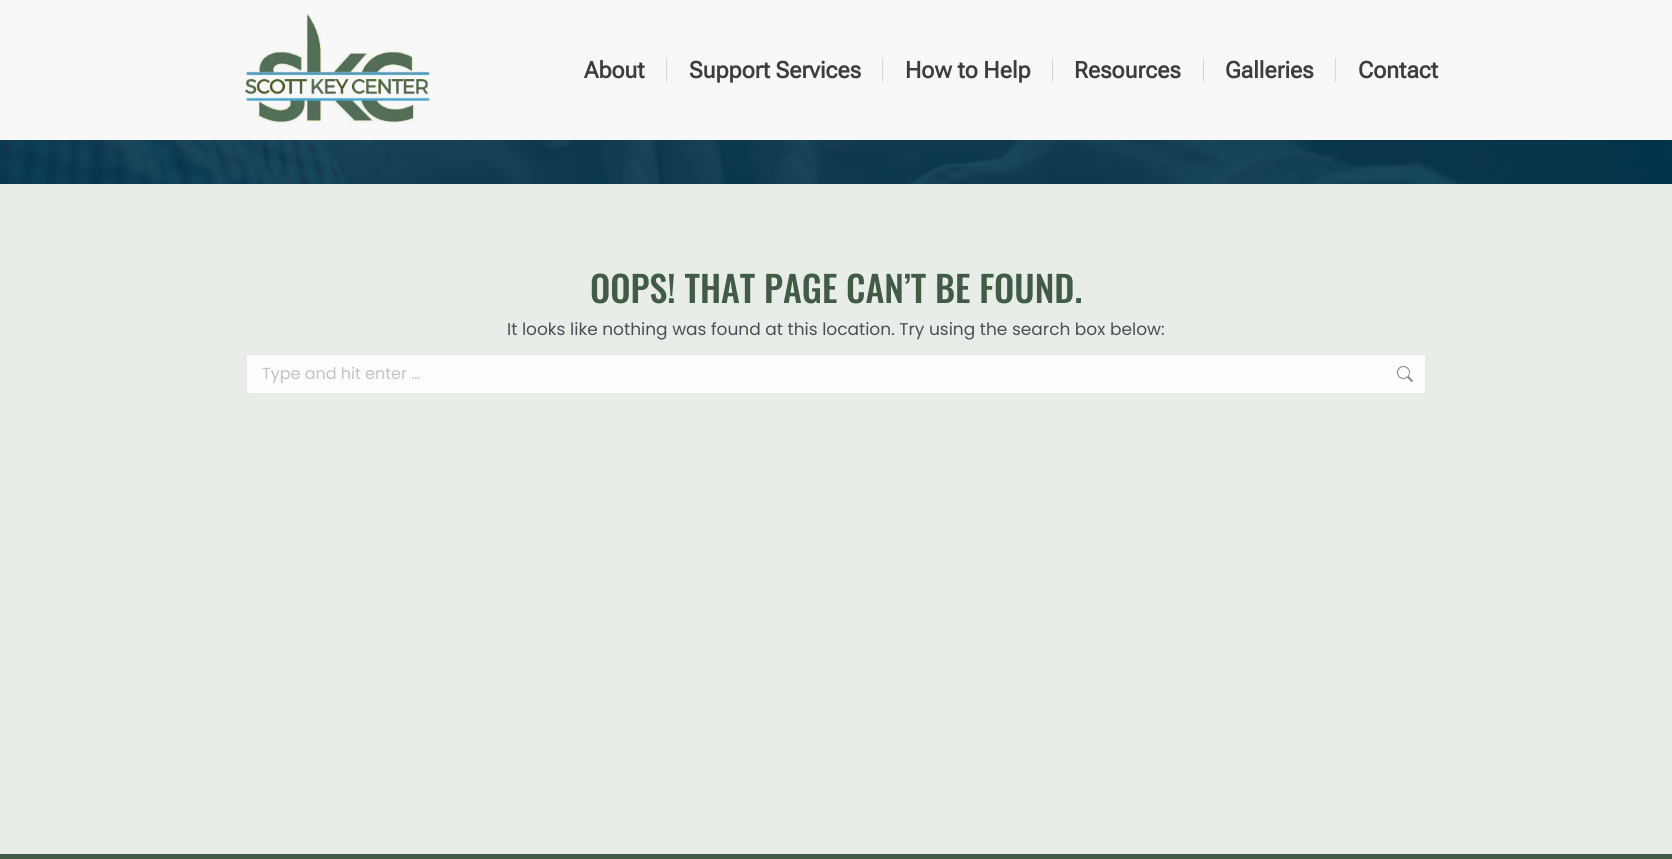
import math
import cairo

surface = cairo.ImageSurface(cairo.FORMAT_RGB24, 1672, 859)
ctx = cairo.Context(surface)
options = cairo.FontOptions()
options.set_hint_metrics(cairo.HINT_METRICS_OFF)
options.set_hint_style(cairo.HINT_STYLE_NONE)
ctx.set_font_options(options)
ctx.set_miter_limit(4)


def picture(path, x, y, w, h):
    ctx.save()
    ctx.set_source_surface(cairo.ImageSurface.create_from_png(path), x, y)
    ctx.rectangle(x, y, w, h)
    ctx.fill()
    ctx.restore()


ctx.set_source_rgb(0.255, 0.357, 0.278)
ctx.paint()
ctx.set_source_rgb(0.969, 0.969, 0.969)
ctx.rectangle(0, 0, 1672, 140)
ctx.fill()
picture("img1.png", 245, 13, 185, 111)
ctx.select_font_face("Roboto Flex", cairo.FONT_SLANT_NORMAL, cairo.FONT_WEIGHT_BOLD)
ctx.set_font_size(23)
ctx.set_source_rgb(0.239, 0.239, 0.239)
ctx.move_to(584, 78)
ctx.show_text("About")
ctx.set_source_rgb(0.843, 0.843, 0.843)
ctx.rectangle(666, 58, 1, 24)
ctx.fill()
ctx.set_source_rgb(0.239, 0.239, 0.239)
ctx.move_to(689, 78)
ctx.show_text("Support Services")
ctx.set_source_rgb(0.843, 0.843, 0.843)
ctx.rectangle(882, 58, 1, 24)
ctx.fill()
ctx.set_source_rgb(0.239, 0.239, 0.239)
ctx.move_to(905, 78)
ctx.show_text("How to Help")
ctx.set_source_rgb(0.843, 0.843, 0.843)
ctx.rectangle(1052, 58, 1, 24)
ctx.fill()
ctx.set_source_rgb(0.239, 0.239, 0.239)
ctx.move_to(1074, 78)
ctx.show_text("Resources")
ctx.set_source_rgb(0.843, 0.843, 0.843)
ctx.rectangle(1203, 58, 1, 24)
ctx.fill()
ctx.set_source_rgb(0.239, 0.239, 0.239)
ctx.move_to(1225, 78)
ctx.show_text("Galleries")
ctx.set_source_rgb(0.843, 0.843, 0.843)
ctx.rectangle(1335, 58, 1, 24)
ctx.fill()
ctx.set_source_rgb(0.239, 0.239, 0.239)
ctx.move_to(1358, 78)
ctx.show_text("Contact")
ctx.set_source_rgb(0.914, 0.929, 0.91)
ctx.rectangle(0, 184, 1672, 670)
ctx.fill()
picture("img2.png", 0, 140, 1672, 44)
ctx.select_font_face("Oswald Medium")
ctx.set_font_size(36)
ctx.set_source_rgb(0.255, 0.357, 0.278)
ctx.move_to(590, 303)
ctx.show_text("OOPS! THAT PAGE CAN’T BE FOUND.")
ctx.select_font_face("Poppins")
ctx.set_font_size(17)
ctx.set_source_rgb(0.298, 0.306, 0.337)
ctx.move_to(507, 335)
ctx.show_text("It looks like nothing was found at this location. Try using the search box below:")
ctx.set_source_rgb(0.992, 0.992, 0.992)
ctx.rectangle(246.5, 354.5, 1179, 39)
ctx.fill_preserve()
ctx.set_source_rgb(0.914, 0.914, 0.914)
ctx.set_line_width(1)
ctx.stroke()
ctx.set_font_size(16)
ctx.set_source_rgb(0.757, 0.761, 0.773)
ctx.move_to(262, 379)
ctx.show_text("Type and hit enter …")
picture("img3.png", 1397, 366, 16, 16)
surface.write_to_png("page.png")
